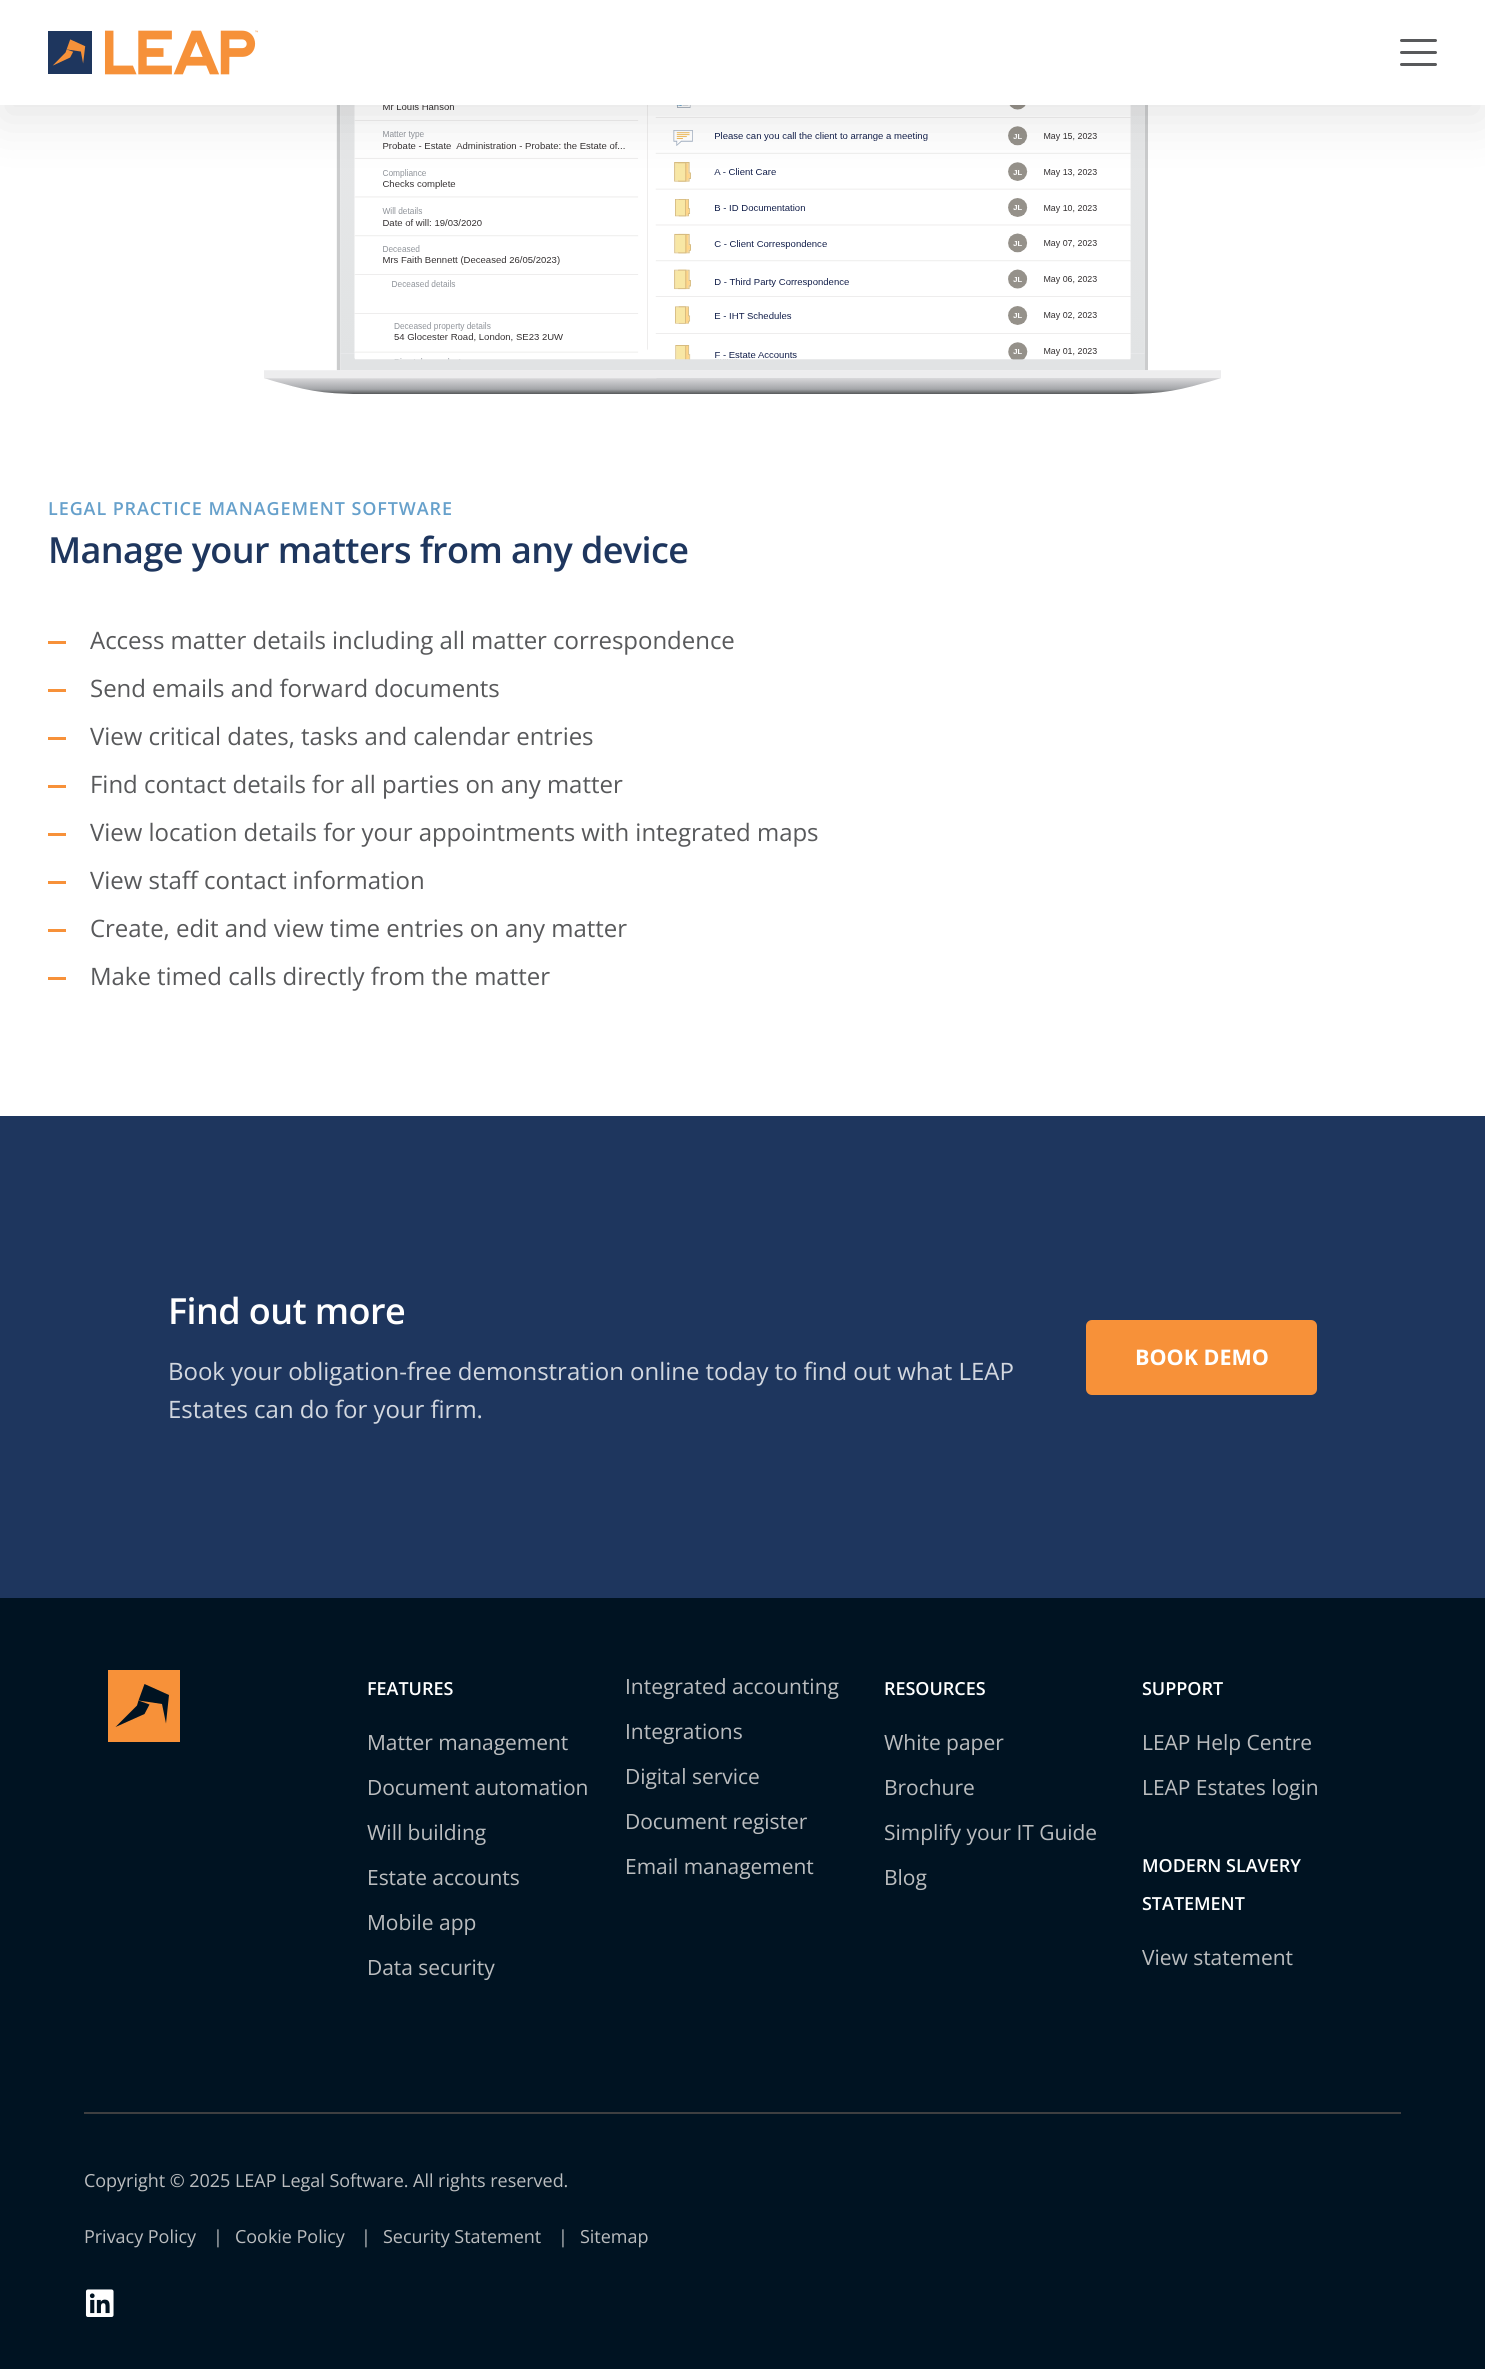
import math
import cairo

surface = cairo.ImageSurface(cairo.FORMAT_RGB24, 1485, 2369)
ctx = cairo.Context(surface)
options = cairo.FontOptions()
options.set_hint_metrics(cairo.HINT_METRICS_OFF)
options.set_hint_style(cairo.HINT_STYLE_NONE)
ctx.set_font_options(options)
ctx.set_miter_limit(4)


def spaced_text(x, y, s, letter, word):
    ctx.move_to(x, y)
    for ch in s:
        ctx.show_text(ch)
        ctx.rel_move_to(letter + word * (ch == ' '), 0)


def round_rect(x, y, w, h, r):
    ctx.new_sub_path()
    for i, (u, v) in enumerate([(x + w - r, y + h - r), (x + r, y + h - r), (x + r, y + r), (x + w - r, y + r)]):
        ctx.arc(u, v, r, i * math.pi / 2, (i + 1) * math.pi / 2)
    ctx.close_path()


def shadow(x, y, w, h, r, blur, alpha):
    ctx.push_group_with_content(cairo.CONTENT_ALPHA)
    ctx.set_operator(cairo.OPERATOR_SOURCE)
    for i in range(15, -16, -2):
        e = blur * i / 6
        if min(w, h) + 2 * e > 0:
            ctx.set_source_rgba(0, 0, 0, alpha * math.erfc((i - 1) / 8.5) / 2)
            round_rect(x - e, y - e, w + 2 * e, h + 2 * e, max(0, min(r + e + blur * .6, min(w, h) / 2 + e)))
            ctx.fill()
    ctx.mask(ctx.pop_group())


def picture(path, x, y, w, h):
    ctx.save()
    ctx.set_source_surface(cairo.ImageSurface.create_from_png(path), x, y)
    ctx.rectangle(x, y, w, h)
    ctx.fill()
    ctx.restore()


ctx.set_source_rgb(1, 1, 1)
ctx.paint()
picture("img2.png", 264, 105, 957, 289)
ctx.set_source_rgb(0, 0, 0)
shadow(0, 15, 1485, 105, 0, 26, 0.1)
ctx.set_source_rgb(1, 1, 1)
ctx.rectangle(0, 0, 1485, 105)
ctx.fill()
picture("img1.png", 48, 30, 210, 45)
ctx.set_source_rgb(0.345, 0.349, 0.357)
round_rect(1400, 39, 37, 3, 1.5)
ctx.fill()
round_rect(1400, 51, 37, 3, 1.5)
ctx.fill()
round_rect(1400, 63, 37, 3, 1.5)
ctx.fill()
ctx.select_font_face("Open Sans SemiBold")
ctx.set_font_size(18)
ctx.set_source_rgb(0.4, 0.627, 0.796)
spaced_text(48, 515, "LEGAL PRACTICE MANAGEMENT SOFTWARE", 0.9, 0)
ctx.set_font_size(36)
ctx.set_source_rgb(0.118, 0.212, 0.369)
spaced_text(48, 563, "Manage your matters from any device", -0.6, 0)
ctx.set_source_rgb(0.965, 0.569, 0.224)
ctx.rectangle(48, 641, 18, 3)
ctx.fill()
ctx.select_font_face("Open Sans")
ctx.set_font_size(24)
ctx.set_source_rgb(0.345, 0.349, 0.357)
spaced_text(90, 649, "Access matter details including all matter correspondence", -0.03, 0)
ctx.set_source_rgb(0.965, 0.569, 0.224)
ctx.rectangle(48, 689, 18, 3)
ctx.fill()
ctx.set_source_rgb(0.345, 0.349, 0.357)
spaced_text(90, 697, "Send emails and forward documents", -0.03, 0)
ctx.set_source_rgb(0.965, 0.569, 0.224)
ctx.rectangle(48, 737, 18, 3)
ctx.fill()
ctx.set_source_rgb(0.345, 0.349, 0.357)
spaced_text(90, 745, "View critical dates, tasks and calendar entries", -0.03, 0)
ctx.set_source_rgb(0.965, 0.569, 0.224)
ctx.rectangle(48, 785, 18, 3)
ctx.fill()
ctx.set_source_rgb(0.345, 0.349, 0.357)
spaced_text(90, 793, "Find contact details for all parties on any matter", -0.03, 0)
ctx.set_source_rgb(0.965, 0.569, 0.224)
ctx.rectangle(48, 833, 18, 3)
ctx.fill()
ctx.set_source_rgb(0.345, 0.349, 0.357)
spaced_text(90, 841, "View location details for your appointments with integrated maps", -0.03, 0)
ctx.set_source_rgb(0.965, 0.569, 0.224)
ctx.rectangle(48, 881, 18, 3)
ctx.fill()
ctx.set_source_rgb(0.345, 0.349, 0.357)
spaced_text(90, 889, "View staff contact information", -0.03, 0)
ctx.set_source_rgb(0.965, 0.569, 0.224)
ctx.rectangle(48, 929, 18, 3)
ctx.fill()
ctx.set_source_rgb(0.345, 0.349, 0.357)
spaced_text(90, 937, "Create, edit and view time entries on any matter", -0.03, 0)
ctx.set_source_rgb(0.965, 0.569, 0.224)
ctx.rectangle(48, 977, 18, 3)
ctx.fill()
ctx.set_source_rgb(0.345, 0.349, 0.357)
spaced_text(90, 985, "Make timed calls directly from the matter", -0.03, 0)
ctx.set_source_rgb(0.118, 0.212, 0.369)
ctx.rectangle(0, 1116, 1485, 482)
ctx.fill()
ctx.select_font_face("Open Sans SemiBold")
ctx.set_font_size(36)
ctx.set_source_rgb(1, 1, 1)
spaced_text(168, 1324, "Find out more", -0.6, 0)
ctx.select_font_face("Open Sans")
ctx.set_font_size(24)
ctx.set_source_rgb(0.824, 0.843, 0.875)
spaced_text(168, 1380, "Book your obligation-free demonstration online today to find out what LEAP", -0.03, 0)
spaced_text(168, 1418, "Estates can do for your firm.", -0.03, 0)
ctx.set_source_rgb(0.965, 0.569, 0.224)
round_rect(1086, 1320, 231, 75, 6)
ctx.fill()
ctx.select_font_face("Open Sans", cairo.FONT_SLANT_NORMAL, cairo.FONT_WEIGHT_BOLD)
ctx.set_font_size(21.5)
ctx.set_source_rgb(1, 1, 1)
ctx.move_to(1135, 1365)
ctx.show_text("BOOK DEMO")
ctx.set_source_rgb(0, 0.075, 0.133)
ctx.rectangle(0, 1598, 1485, 771)
ctx.fill()
ctx.set_source_rgb(0.243, 0.247, 0.255)
ctx.rectangle(84, 2112, 1317, 2)
ctx.fill()
ctx.set_source_rgb(0.965, 0.569, 0.224)
ctx.rectangle(108, 1670, 72, 72)
ctx.fill()
ctx.set_source_rgb(0, 0.075, 0.133)
ctx.new_path()
ctx.move_to(138.5, 1700.5)
ctx.line_to(162, 1704)
ctx.line_to(166, 1723.5)
ctx.line_to(169, 1695)
ctx.line_to(144.5, 1684)
ctx.close_path()
ctx.fill()
ctx.new_path()
ctx.move_to(138.5, 1700.5)
ctx.line_to(137, 1705.5)
ctx.line_to(115.5, 1727)
ctx.line_to(144.5, 1714)
ctx.line_to(149.5, 1704.5)
ctx.close_path()
ctx.fill()
ctx.select_font_face("Open Sans SemiBold")
ctx.set_font_size(18)
ctx.set_source_rgb(1, 1, 1)
spaced_text(367, 1695, "FEATURES", -0.03, 0)
ctx.select_font_face("Open Sans")
ctx.set_font_size(21)
ctx.set_source_rgb(0.733, 0.741, 0.749)
spaced_text(367, 1750, "Matter management", -0.03, 0)
spaced_text(367, 1795, "Document automation", -0.03, 0)
spaced_text(367, 1840, "Will building", -0.03, 0)
spaced_text(367, 1885, "Estate accounts", -0.03, 0)
spaced_text(367, 1930, "Mobile app", -0.03, 0)
spaced_text(367, 1975, "Data security", -0.03, 0)
spaced_text(625, 1694, "Integrated accounting", -0.03, 0)
spaced_text(625, 1739, "Integrations", -0.03, 0)
spaced_text(625, 1784, "Digital service", -0.03, 0)
spaced_text(625, 1829, "Document register", -0.03, 0)
spaced_text(625, 1874, "Email management", -0.03, 0)
ctx.select_font_face("Open Sans SemiBold")
ctx.set_font_size(18)
ctx.set_source_rgb(1, 1, 1)
spaced_text(884, 1695, "RESOURCES", -0.03, 0)
ctx.select_font_face("Open Sans")
ctx.set_font_size(21)
ctx.set_source_rgb(0.733, 0.741, 0.749)
spaced_text(884, 1750, "White paper", -0.03, 0)
spaced_text(884, 1795, "Brochure", -0.03, 0)
spaced_text(884, 1840, "Simplify your IT Guide", -0.03, 0)
spaced_text(884, 1885, "Blog", -0.03, 0)
ctx.select_font_face("Open Sans SemiBold")
ctx.set_font_size(18)
ctx.set_source_rgb(1, 1, 1)
spaced_text(1142, 1695, "SUPPORT", -0.03, 0)
ctx.select_font_face("Open Sans")
ctx.set_font_size(21)
ctx.set_source_rgb(0.733, 0.741, 0.749)
spaced_text(1142, 1750, "LEAP Help Centre", -0.03, 0)
spaced_text(1142, 1795, "LEAP Estates login", -0.03, 0)
ctx.select_font_face("Open Sans SemiBold")
ctx.set_font_size(18)
ctx.set_source_rgb(1, 1, 1)
spaced_text(1142, 1872, "MODERN SLAVERY", -0.03, 0)
spaced_text(1142, 1910, "STATEMENT", -0.03, 0)
ctx.select_font_face("Open Sans")
ctx.set_font_size(21)
ctx.set_source_rgb(0.733, 0.741, 0.749)
spaced_text(1142, 1965, "View statement", -0.03, 0)
ctx.set_font_size(18)
spaced_text(84, 2187, "Copyright © 2025 LEAP Legal Software. All rights reserved.", -0.03, 0)
spaced_text(84, 2243, "Privacy Policy", -0.03, 0)
spaced_text(213, 2243, "|", -0.03, 0)
spaced_text(235, 2243, "Cookie Policy", -0.03, 0)
spaced_text(361, 2243, "|", -0.03, 0)
spaced_text(383, 2243, "Security Statement", -0.03, 0)
spaced_text(558, 2243, "|", -0.03, 0)
spaced_text(580, 2243, "Sitemap", -0.03, 0)
picture("img3.png", 85, 2289, 29, 28)
surface.write_to_png("page.png")
